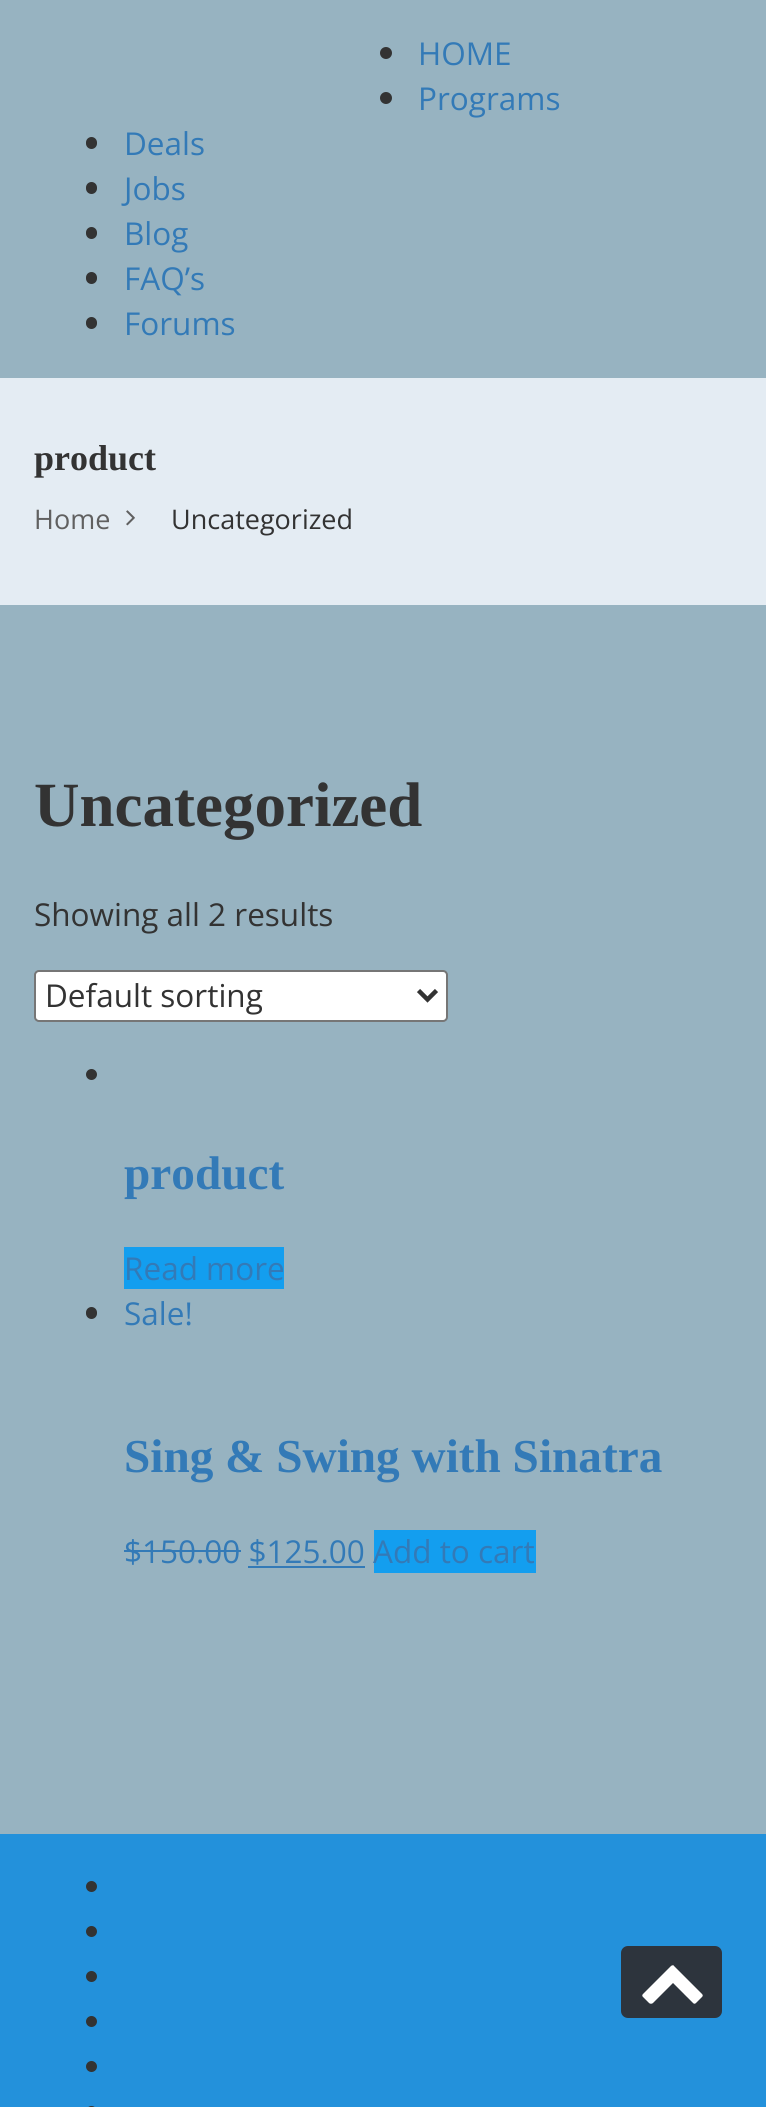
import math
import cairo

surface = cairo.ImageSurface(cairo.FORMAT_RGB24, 766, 2107)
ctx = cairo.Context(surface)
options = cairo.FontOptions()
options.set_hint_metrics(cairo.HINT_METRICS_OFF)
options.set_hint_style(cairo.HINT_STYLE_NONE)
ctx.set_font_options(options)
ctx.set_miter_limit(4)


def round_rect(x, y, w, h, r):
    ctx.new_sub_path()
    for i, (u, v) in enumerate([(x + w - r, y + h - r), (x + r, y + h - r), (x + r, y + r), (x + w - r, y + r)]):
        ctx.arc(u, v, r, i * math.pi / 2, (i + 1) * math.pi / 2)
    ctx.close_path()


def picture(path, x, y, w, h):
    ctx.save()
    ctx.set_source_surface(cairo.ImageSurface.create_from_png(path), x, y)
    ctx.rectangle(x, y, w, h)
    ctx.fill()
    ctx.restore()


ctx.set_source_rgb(0.592, 0.702, 0.757)
ctx.paint()
ctx.set_source_rgb(0.2, 0.2, 0.2)
ctx.arc(386, 53, 6, 0, 2 * math.pi)
ctx.fill()
ctx.select_font_face("Open Sans")
ctx.set_font_size(31.5)
ctx.set_source_rgb(0.2, 0.478, 0.718)
ctx.move_to(418, 65)
ctx.show_text("HOME")
ctx.set_source_rgb(0.2, 0.2, 0.2)
ctx.new_path()
ctx.arc(386, 98, 6, 0, 2 * math.pi)
ctx.fill()
ctx.set_source_rgb(0.2, 0.478, 0.718)
ctx.move_to(418, 110)
ctx.show_text("Programs")
ctx.set_source_rgb(0.2, 0.2, 0.2)
round_rect(86, 137, 11, 12, 5.5)
ctx.fill()
ctx.set_source_rgb(0.2, 0.478, 0.718)
ctx.move_to(124, 155)
ctx.show_text("Deals")
ctx.set_source_rgb(0.2, 0.2, 0.2)
round_rect(86, 182, 11, 12, 5.5)
ctx.fill()
ctx.set_source_rgb(0.2, 0.478, 0.718)
ctx.move_to(124, 200)
ctx.show_text("Jobs")
ctx.set_source_rgb(0.2, 0.2, 0.2)
round_rect(86, 227, 11, 12, 5.5)
ctx.fill()
ctx.set_source_rgb(0.2, 0.478, 0.718)
ctx.move_to(124, 245)
ctx.show_text("Blog")
ctx.set_source_rgb(0.2, 0.2, 0.2)
round_rect(86, 272, 11, 12, 5.5)
ctx.fill()
ctx.set_source_rgb(0.2, 0.478, 0.718)
ctx.move_to(124, 290)
ctx.show_text("FAQ’s")
ctx.set_source_rgb(0.2, 0.2, 0.2)
round_rect(86, 317, 11, 12, 5.5)
ctx.fill()
ctx.set_source_rgb(0.2, 0.478, 0.718)
ctx.move_to(124, 335)
ctx.show_text("Forums")
ctx.set_source_rgb(0.894, 0.925, 0.953)
ctx.rectangle(0, 378, 766, 227)
ctx.fill()
ctx.select_font_face("Liberation Serif", cairo.FONT_SLANT_NORMAL, cairo.FONT_WEIGHT_BOLD)
ctx.set_font_size(36)
ctx.set_source_rgb(0.2, 0.2, 0.2)
ctx.move_to(34, 470)
ctx.show_text("product")
ctx.select_font_face("Open Sans")
ctx.set_font_size(27)
ctx.set_source_rgb(0.376, 0.376, 0.376)
ctx.move_to(34, 529)
ctx.show_text("Home")
picture("img1.png", 126, 510, 9, 16)
ctx.set_source_rgb(0.2, 0.2, 0.2)
ctx.move_to(171, 529)
ctx.show_text("Uncategorized")
ctx.select_font_face("Liberation Serif", cairo.FONT_SLANT_NORMAL, cairo.FONT_WEIGHT_BOLD)
ctx.set_font_size(63)
ctx.move_to(34, 826)
ctx.show_text("Uncategorized")
ctx.select_font_face("Open Sans")
ctx.set_font_size(31.5)
ctx.move_to(34, 926)
ctx.show_text("Showing all 2 results")
ctx.set_source_rgb(1, 1, 1)
round_rect(35, 971, 412, 50, 4)
ctx.fill_preserve()
ctx.set_source_rgb(0.463, 0.463, 0.463)
ctx.stroke()
ctx.new_path()
ctx.move_to(418.5, 990.5)
ctx.line_to(427.5, 999.5)
ctx.line_to(436.5, 990.5)
ctx.set_source_rgb(0.2, 0.2, 0.2)
ctx.set_line_width(4.5)
ctx.stroke()
ctx.move_to(45, 1007)
ctx.show_text("Default sorting")
ctx.new_path()
ctx.arc(91.5, 1074.5, 5.5, 0, 2 * math.pi)
ctx.fill()
ctx.select_font_face("Liberation Serif", cairo.FONT_SLANT_NORMAL, cairo.FONT_WEIGHT_BOLD)
ctx.set_font_size(47.25)
ctx.set_source_rgb(0.2, 0.478, 0.718)
ctx.move_to(124, 1189)
ctx.show_text("product")
ctx.set_source_rgb(0.075, 0.62, 0.937)
ctx.rectangle(124, 1247, 160, 42)
ctx.fill()
ctx.select_font_face("Open Sans")
ctx.set_font_size(31.5)
ctx.set_source_rgb(0.2, 0.478, 0.718)
ctx.move_to(124, 1280)
ctx.show_text("Read more")
ctx.set_source_rgb(0.2, 0.2, 0.2)
round_rect(86, 1307, 11, 12, 5.5)
ctx.fill()
ctx.set_source_rgb(0.2, 0.478, 0.718)
ctx.move_to(124, 1325)
ctx.show_text("Sale!")
ctx.select_font_face("Liberation Serif", cairo.FONT_SLANT_NORMAL, cairo.FONT_WEIGHT_BOLD)
ctx.set_font_size(47.25)
ctx.move_to(124, 1472)
ctx.show_text("Sing & Swing with Sinatra")
ctx.select_font_face("Open Sans")
ctx.set_font_size(31.5)
ctx.move_to(124, 1563)
ctx.show_text("$150.00 $125.00")
ctx.rectangle(124, 1550, 117, 2)
ctx.fill()
ctx.rectangle(248, 1566, 117, 2)
ctx.fill()
ctx.set_source_rgb(0.075, 0.62, 0.937)
ctx.rectangle(374, 1530, 162, 43)
ctx.fill()
ctx.set_source_rgb(0.2, 0.478, 0.718)
ctx.move_to(373, 1563)
ctx.show_text("Add to cart")
ctx.set_source_rgb(0.137, 0.569, 0.859)
ctx.rectangle(0, 1834, 766, 273)
ctx.fill()
ctx.set_source_rgb(0.2, 0.2, 0.2)
ctx.arc(91.5, 1886.5, 5.5, 0, 2 * math.pi)
ctx.fill()
ctx.arc(91.5, 1931.5, 5.5, 0, 2 * math.pi)
ctx.fill()
ctx.arc(91.5, 1976.5, 5.5, 0, 2 * math.pi)
ctx.fill()
ctx.arc(91.5, 2021.5, 5.5, 0, 2 * math.pi)
ctx.fill()
ctx.arc(91.5, 2066.5, 5.5, 0, 2 * math.pi)
ctx.fill()
round_rect(86, 2106, 11, 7, 5.5)
ctx.fill()
ctx.set_source_rgb(0.176, 0.204, 0.239)
round_rect(621, 1946, 101, 72, 7)
ctx.fill()
ctx.set_source_rgb(1, 1, 1)
ctx.new_path()
ctx.move_to(702, 1997)
ctx.curve_to(703, 1996, 703, 1995, 702, 1994)
ctx.line_to(674, 1966)
ctx.curve_to(674, 1965, 672, 1965, 671, 1966)
ctx.line_to(643, 1994)
ctx.curve_to(642, 1995, 642, 1996, 643, 1997)
ctx.line_to(649, 2003)
ctx.curve_to(650, 2004, 652, 2004, 653, 2003)
ctx.line_to(673, 1983)
ctx.line_to(693, 2003)
ctx.curve_to(694, 2004, 695, 2004, 696, 2003)
ctx.close_path()
ctx.fill()
surface.write_to_png("page.png")
